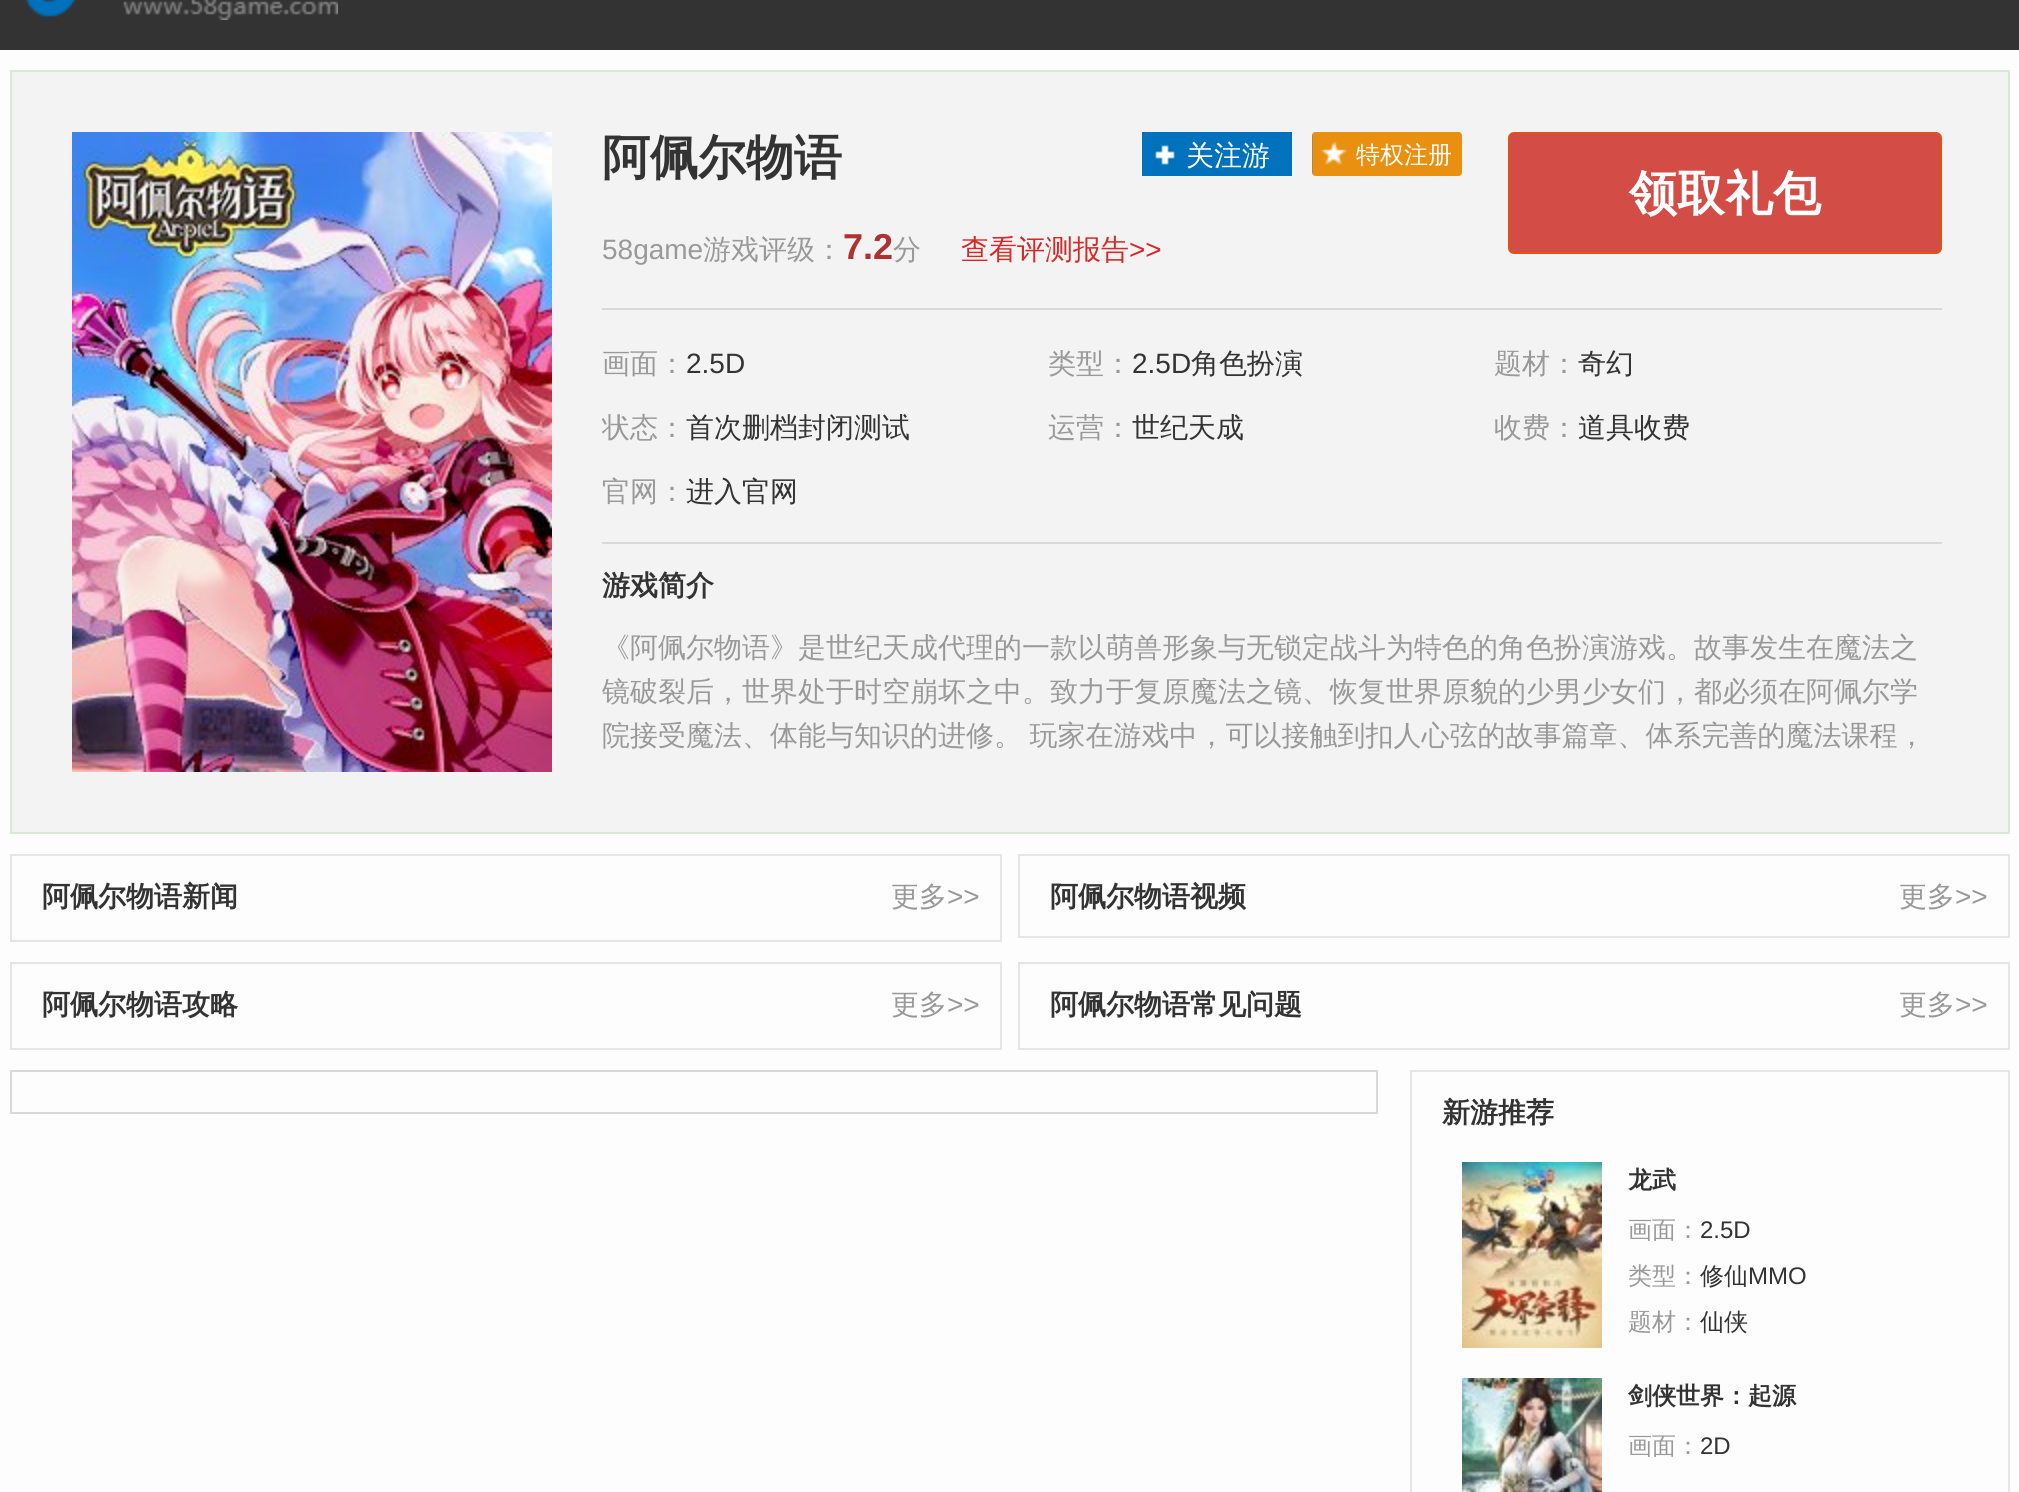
import math
import cairo

surface = cairo.ImageSurface(cairo.FORMAT_RGB24, 2019, 1492)
ctx = cairo.Context(surface)
options = cairo.FontOptions()
options.set_hint_metrics(cairo.HINT_METRICS_OFF)
options.set_hint_style(cairo.HINT_STYLE_NONE)
ctx.set_font_options(options)
ctx.set_miter_limit(4)


def spaced_text(x, y, s, letter, word):
    ctx.move_to(x, y)
    for ch in s:
        ctx.show_text(ch)
        ctx.rel_move_to(letter + word * (ch == ' '), 0)


def round_rect(x, y, w, h, r):
    ctx.new_sub_path()
    for i, (u, v) in enumerate([(x + w - r, y + h - r), (x + r, y + h - r), (x + r, y + r), (x + w - r, y + r)]):
        ctx.arc(u, v, r, i * math.pi / 2, (i + 1) * math.pi / 2)
    ctx.close_path()


def picture(path, x, y, w, h):
    ctx.save()
    ctx.set_source_surface(cairo.ImageSurface.create_from_png(path), x, y)
    ctx.rectangle(x, y, w, h)
    ctx.fill()
    ctx.restore()


ctx.set_source_rgb(0.992, 0.992, 0.992)
ctx.paint()
ctx.set_source_rgb(0.2, 0.2, 0.2)
ctx.rectangle(0, 0, 2019, 50)
ctx.fill()
picture("img1.png", 25, 0, 313, 20)
ctx.set_source_rgb(0.953, 0.953, 0.953)
ctx.rectangle(11, 71, 1998, 762)
ctx.fill_preserve()
ctx.set_source_rgb(0.859, 0.906, 0.851)
ctx.stroke()
picture("img2.png", 72, 132, 480, 640)
ctx.select_font_face("WenQuanYi Zen Hei", cairo.FONT_SLANT_NORMAL, cairo.FONT_WEIGHT_BOLD)
ctx.set_font_size(48)
ctx.set_source_rgb(0.2, 0.2, 0.2)
ctx.move_to(602, 174)
ctx.show_text("阿佩尔物语")
picture("img3.png", 1142, 132, 150, 44)
ctx.select_font_face("WenQuanYi Zen Hei Medium")
ctx.set_font_size(28)
ctx.set_source_rgb(1, 1, 1)
ctx.move_to(1186, 165)
ctx.show_text("关注游")
picture("img4.png", 1312, 132, 150, 44)
ctx.set_font_size(24)
ctx.move_to(1356, 163)
ctx.show_text("特权注册")
ctx.select_font_face("Liberation Sans")
ctx.set_font_size(28)
ctx.set_source_rgb(0.6, 0.6, 0.6)
ctx.move_to(602, 259)
ctx.show_text("58game")
ctx.select_font_face("WenQuanYi Zen Hei Medium")
ctx.move_to(703, 259)
ctx.show_text("游戏评级：")
ctx.select_font_face("Liberation Sans", cairo.FONT_SLANT_NORMAL, cairo.FONT_WEIGHT_BOLD)
ctx.set_font_size(36)
ctx.set_source_rgb(0.686, 0.196, 0.196)
ctx.move_to(843, 259)
ctx.show_text("7.2")
ctx.select_font_face("WenQuanYi Zen Hei Medium")
ctx.set_font_size(28)
ctx.set_source_rgb(0.6, 0.6, 0.6)
ctx.move_to(893, 259)
ctx.show_text("分")
ctx.set_source_rgb(0.831, 0.165, 0.165)
ctx.move_to(961, 259)
ctx.show_text("查看评测报告")
ctx.select_font_face("Liberation Sans")
ctx.move_to(1129, 259)
ctx.show_text(">>")
ctx.set_source_rgb(0.827, 0.298, 0.275)
round_rect(1509, 133, 432, 120, 5)
ctx.fill_preserve()
ctx.set_source_rgb(0.867, 0.329, 0.106)
ctx.stroke()
ctx.select_font_face("WenQuanYi Zen Hei", cairo.FONT_SLANT_NORMAL, cairo.FONT_WEIGHT_BOLD)
ctx.set_font_size(48)
ctx.set_source_rgb(1, 1, 1)
ctx.move_to(1629, 210)
ctx.show_text("领取礼包")
ctx.set_source_rgb(0.847, 0.847, 0.847)
ctx.rectangle(602, 308, 1340, 2)
ctx.fill()
ctx.rectangle(602, 542, 1340, 2)
ctx.fill()
ctx.select_font_face("WenQuanYi Zen Hei Medium")
ctx.set_font_size(28)
ctx.set_source_rgb(0.6, 0.6, 0.6)
ctx.move_to(602, 373)
ctx.show_text("画面：")
ctx.select_font_face("Liberation Sans")
ctx.set_source_rgb(0.2, 0.2, 0.2)
ctx.move_to(686, 373)
ctx.show_text("2.5D")
ctx.select_font_face("WenQuanYi Zen Hei Medium")
ctx.set_source_rgb(0.6, 0.6, 0.6)
ctx.move_to(1048, 373)
ctx.show_text("类型：")
ctx.select_font_face("Liberation Sans")
ctx.set_source_rgb(0.2, 0.2, 0.2)
ctx.move_to(1132, 373)
ctx.show_text("2.5D")
ctx.select_font_face("WenQuanYi Zen Hei Medium")
ctx.move_to(1191, 373)
ctx.show_text("角色扮演")
ctx.set_source_rgb(0.6, 0.6, 0.6)
ctx.move_to(1494, 373)
ctx.show_text("题材：")
ctx.set_source_rgb(0.2, 0.2, 0.2)
ctx.move_to(1578, 373)
ctx.show_text("奇幻")
ctx.save()
ctx.rectangle(602, 394, 446, 64)
ctx.clip()
ctx.set_source_rgb(0.6, 0.6, 0.6)
ctx.move_to(602, 437)
ctx.show_text("状态：")
ctx.restore()
ctx.move_to(686, 437)
ctx.show_text("首次删档封闭测试")
ctx.set_source_rgb(0.6, 0.6, 0.6)
ctx.move_to(1048, 437)
ctx.show_text("运营：")
ctx.set_source_rgb(0.2, 0.2, 0.2)
ctx.move_to(1132, 437)
ctx.show_text("世纪天成")
ctx.set_source_rgb(0.6, 0.6, 0.6)
ctx.move_to(1494, 437)
ctx.show_text("收费：")
ctx.set_source_rgb(0.2, 0.2, 0.2)
ctx.move_to(1578, 437)
ctx.show_text("道具收费")
ctx.set_source_rgb(0.6, 0.6, 0.6)
ctx.move_to(602, 501)
ctx.show_text("官网：")
ctx.set_source_rgb(0.2, 0.2, 0.2)
ctx.move_to(686, 501)
ctx.show_text("进入官网")
ctx.select_font_face("WenQuanYi Zen Hei", cairo.FONT_SLANT_NORMAL, cairo.FONT_WEIGHT_BOLD)
ctx.move_to(602, 595)
ctx.show_text("游戏简介")
ctx.select_font_face("WenQuanYi Zen Hei Medium")
ctx.set_source_rgb(0.6, 0.6, 0.6)
ctx.move_to(602, 657)
ctx.show_text("《阿佩尔物语》是世纪天成代理的一款以萌兽形象与无锁定战斗为特色的角色扮演游戏。故事发生在魔法之")
ctx.move_to(602, 701)
ctx.show_text("镜破裂后，世界处于时空崩坏之中。致力于复原魔法之镜、恢复世界原貌的少男少女们，都必须在阿佩尔学")
spaced_text(602, 745, "院接受魔法、体能与知识的进修。 玩家在游戏中，可以接触到扣人心弦的故事篇章、体系完善的魔法课程，", 0, -1)
ctx.rectangle(11, 855, 990, 86)
ctx.set_source_rgb(0.902, 0.894, 0.894)
ctx.stroke()
ctx.select_font_face("WenQuanYi Zen Hei", cairo.FONT_SLANT_NORMAL, cairo.FONT_WEIGHT_BOLD)
ctx.set_source_rgb(0.2, 0.2, 0.2)
ctx.move_to(42, 906)
ctx.show_text("阿佩尔物语新闻")
ctx.select_font_face("WenQuanYi Zen Hei Medium")
ctx.set_source_rgb(0.6, 0.6, 0.6)
ctx.move_to(891, 906)
ctx.show_text("更多")
ctx.select_font_face("Liberation Sans")
ctx.move_to(947, 906)
ctx.show_text(">>")
ctx.rectangle(1019, 855, 990, 82)
ctx.set_source_rgb(0.902, 0.894, 0.894)
ctx.stroke()
ctx.select_font_face("WenQuanYi Zen Hei", cairo.FONT_SLANT_NORMAL, cairo.FONT_WEIGHT_BOLD)
ctx.set_source_rgb(0.2, 0.2, 0.2)
ctx.move_to(1050, 906)
ctx.show_text("阿佩尔物语视频")
ctx.select_font_face("WenQuanYi Zen Hei Medium")
ctx.set_source_rgb(0.6, 0.6, 0.6)
ctx.move_to(1899, 906)
ctx.show_text("更多")
ctx.select_font_face("Liberation Sans")
ctx.move_to(1955, 906)
ctx.show_text(">>")
ctx.rectangle(11, 963, 990, 86)
ctx.set_source_rgb(0.902, 0.894, 0.894)
ctx.stroke()
ctx.select_font_face("WenQuanYi Zen Hei", cairo.FONT_SLANT_NORMAL, cairo.FONT_WEIGHT_BOLD)
ctx.set_source_rgb(0.2, 0.2, 0.2)
ctx.move_to(42, 1014)
ctx.show_text("阿佩尔物语攻略")
ctx.select_font_face("WenQuanYi Zen Hei Medium")
ctx.set_source_rgb(0.6, 0.6, 0.6)
ctx.move_to(891, 1014)
ctx.show_text("更多")
ctx.select_font_face("Liberation Sans")
ctx.move_to(947, 1014)
ctx.show_text(">>")
ctx.rectangle(1019, 963, 990, 86)
ctx.set_source_rgb(0.902, 0.894, 0.894)
ctx.stroke()
ctx.select_font_face("WenQuanYi Zen Hei", cairo.FONT_SLANT_NORMAL, cairo.FONT_WEIGHT_BOLD)
ctx.set_source_rgb(0.2, 0.2, 0.2)
ctx.move_to(1050, 1014)
ctx.show_text("阿佩尔物语常见问题")
ctx.select_font_face("WenQuanYi Zen Hei Medium")
ctx.set_source_rgb(0.6, 0.6, 0.6)
ctx.move_to(1899, 1014)
ctx.show_text("更多")
ctx.select_font_face("Liberation Sans")
ctx.move_to(1955, 1014)
ctx.show_text(">>")
ctx.rectangle(11, 1071, 1366, 42)
ctx.set_source_rgb(0.847, 0.847, 0.847)
ctx.stroke()
ctx.rectangle(1411, 1071, 598, 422)
ctx.set_source_rgb(0.902, 0.894, 0.894)
ctx.stroke()
ctx.select_font_face("WenQuanYi Zen Hei", cairo.FONT_SLANT_NORMAL, cairo.FONT_WEIGHT_BOLD)
ctx.set_source_rgb(0.2, 0.2, 0.2)
ctx.move_to(1442, 1122)
ctx.show_text("新游推荐")
picture("img5.png", 1462, 1162, 140, 186)
ctx.set_font_size(24)
ctx.move_to(1628, 1188)
ctx.show_text("龙武")
ctx.select_font_face("WenQuanYi Zen Hei Medium")
ctx.set_source_rgb(0.6, 0.6, 0.6)
ctx.move_to(1628, 1238)
ctx.show_text("画面：")
ctx.select_font_face("Liberation Sans")
ctx.set_source_rgb(0.2, 0.2, 0.2)
ctx.move_to(1700, 1238)
ctx.show_text("2.5D")
ctx.select_font_face("WenQuanYi Zen Hei Medium")
ctx.set_source_rgb(0.6, 0.6, 0.6)
ctx.move_to(1628, 1284)
ctx.show_text("类型：")
ctx.set_source_rgb(0.2, 0.2, 0.2)
ctx.move_to(1700, 1284)
ctx.show_text("修仙")
ctx.select_font_face("Liberation Sans")
ctx.move_to(1748, 1284)
ctx.show_text("MMO")
ctx.select_font_face("WenQuanYi Zen Hei Medium")
ctx.set_source_rgb(0.6, 0.6, 0.6)
ctx.move_to(1628, 1330)
ctx.show_text("题材：")
ctx.set_source_rgb(0.2, 0.2, 0.2)
ctx.move_to(1700, 1330)
ctx.show_text("仙侠")
picture("img6.png", 1462, 1378, 140, 114)
ctx.select_font_face("WenQuanYi Zen Hei", cairo.FONT_SLANT_NORMAL, cairo.FONT_WEIGHT_BOLD)
ctx.move_to(1628, 1404)
ctx.show_text("剑侠世界：起源")
ctx.select_font_face("WenQuanYi Zen Hei Medium")
ctx.set_source_rgb(0.6, 0.6, 0.6)
ctx.move_to(1628, 1454)
ctx.show_text("画面：")
ctx.select_font_face("Liberation Sans")
ctx.set_source_rgb(0.2, 0.2, 0.2)
ctx.move_to(1700, 1454)
ctx.show_text("2D")
surface.write_to_png("page.png")
